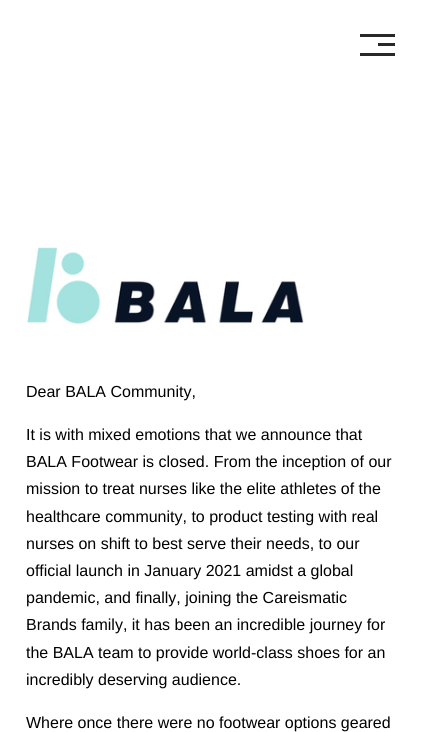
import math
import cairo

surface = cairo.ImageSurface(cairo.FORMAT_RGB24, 427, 732)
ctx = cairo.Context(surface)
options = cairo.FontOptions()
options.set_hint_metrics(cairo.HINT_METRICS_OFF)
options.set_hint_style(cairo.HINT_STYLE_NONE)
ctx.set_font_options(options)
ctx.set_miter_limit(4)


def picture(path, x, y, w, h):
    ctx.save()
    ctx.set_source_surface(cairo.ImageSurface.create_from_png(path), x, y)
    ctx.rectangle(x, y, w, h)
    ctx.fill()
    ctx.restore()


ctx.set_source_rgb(1, 1, 1)
ctx.paint()
ctx.set_source_rgb(0.157, 0.157, 0.165)
ctx.rectangle(360, 34, 35, 3)
ctx.fill()
ctx.rectangle(378, 43, 17, 3)
ctx.fill()
ctx.rectangle(360, 53, 35, 3)
ctx.fill()
picture("img1.png", 27, 247, 277, 77)
ctx.select_font_face("Liberation Sans")
ctx.set_font_size(16)
ctx.set_source_rgb(0, 0, 0)
ctx.move_to(26, 397)
ctx.show_text("Dear BALA Community,")
ctx.move_to(26, 440)
ctx.show_text("It is with mixed emotions that we announce that")
ctx.move_to(26, 467)
ctx.show_text("BALA Footwear is closed. From the inception of our")
ctx.move_to(26, 494)
ctx.show_text("mission to treat nurses like the elite athletes of the")
ctx.move_to(26, 522)
ctx.show_text("healthcare community, to product testing with real")
ctx.move_to(26, 549)
ctx.show_text("nurses on shift to best serve their needs, to our")
ctx.move_to(26, 576)
ctx.show_text("official launch in January 2021 amidst a global")
ctx.move_to(26, 603)
ctx.show_text("pandemic, and finally, joining the Careismatic")
ctx.move_to(26, 630)
ctx.show_text("Brands family, it has been an incredible journey for")
ctx.move_to(26, 658)
ctx.show_text("the BALA team to provide world-class shoes for an")
ctx.move_to(26, 685)
ctx.show_text("incredibly deserving audience.")
ctx.move_to(26, 728)
ctx.show_text("Where once there were no footwear options geared")
surface.write_to_png("page.png")
